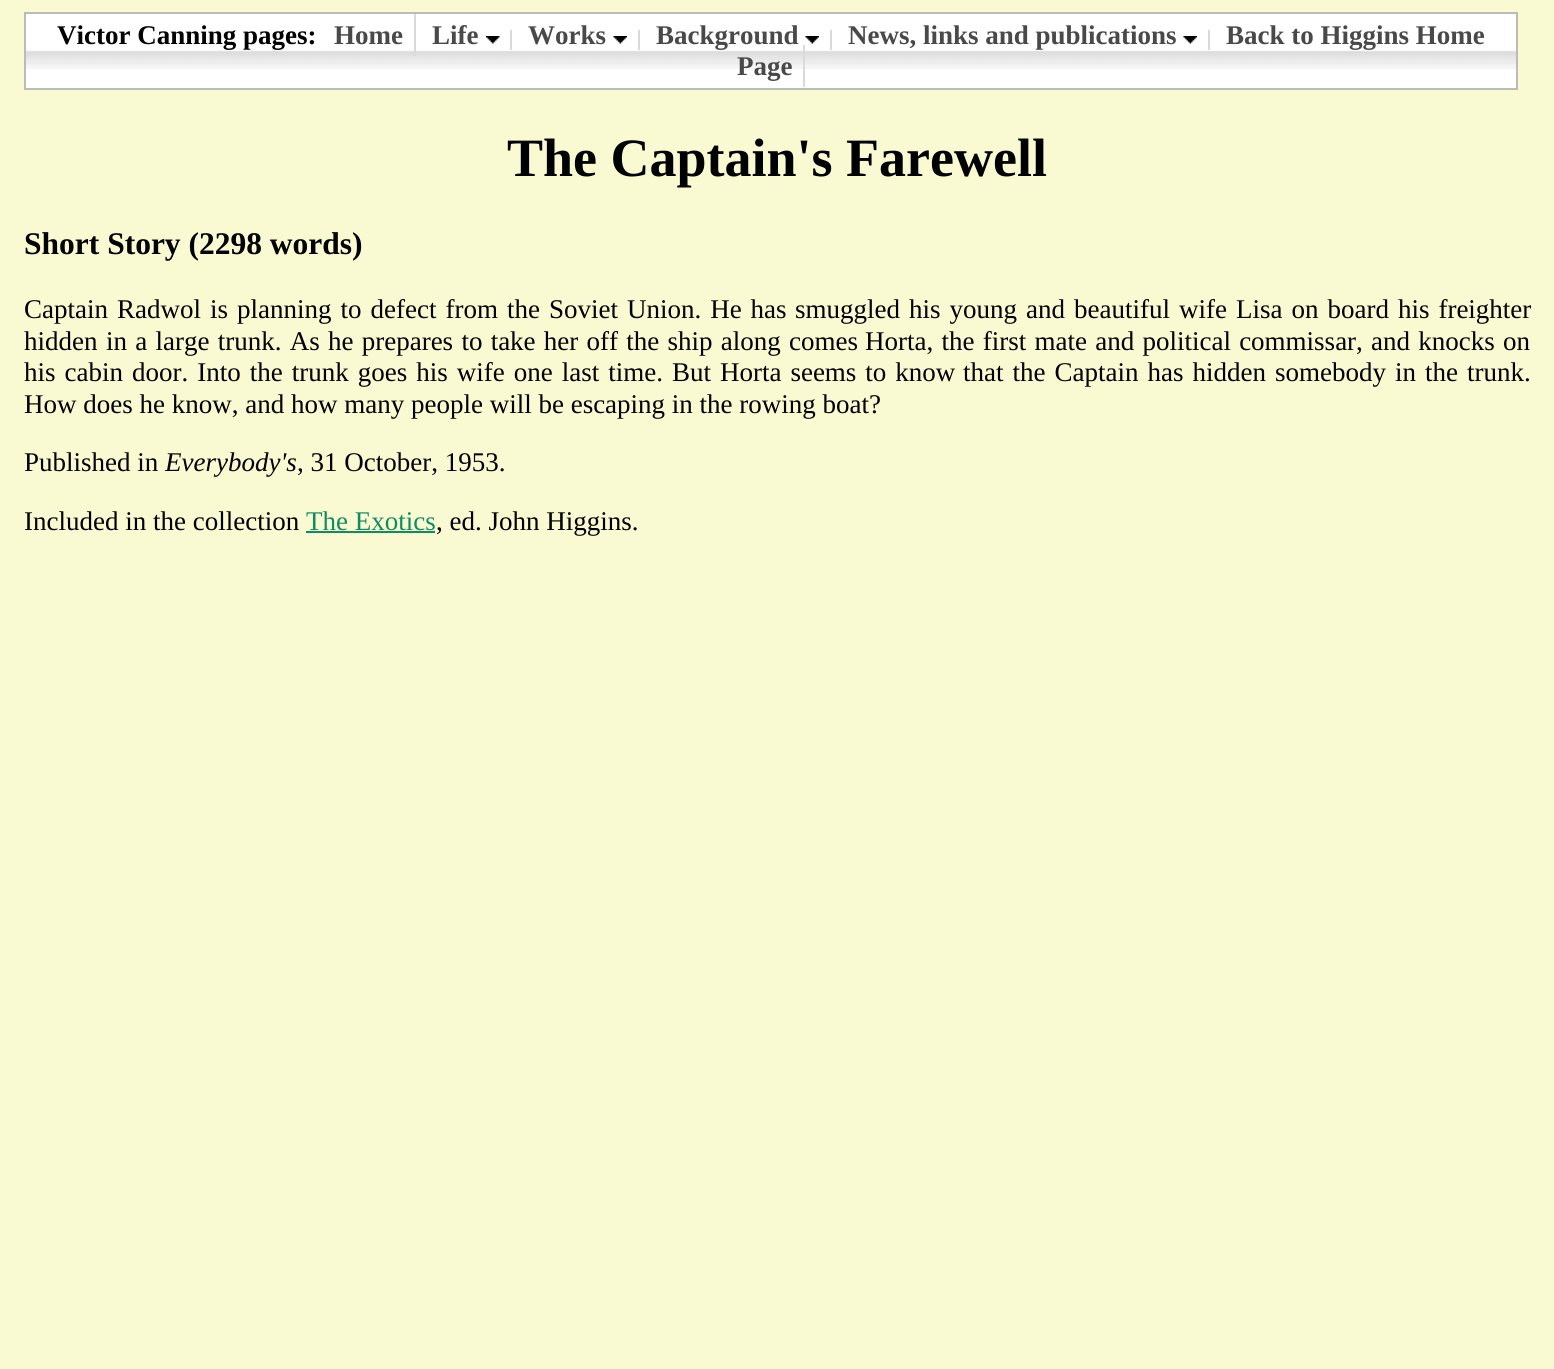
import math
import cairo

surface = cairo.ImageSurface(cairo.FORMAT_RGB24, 1554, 1369)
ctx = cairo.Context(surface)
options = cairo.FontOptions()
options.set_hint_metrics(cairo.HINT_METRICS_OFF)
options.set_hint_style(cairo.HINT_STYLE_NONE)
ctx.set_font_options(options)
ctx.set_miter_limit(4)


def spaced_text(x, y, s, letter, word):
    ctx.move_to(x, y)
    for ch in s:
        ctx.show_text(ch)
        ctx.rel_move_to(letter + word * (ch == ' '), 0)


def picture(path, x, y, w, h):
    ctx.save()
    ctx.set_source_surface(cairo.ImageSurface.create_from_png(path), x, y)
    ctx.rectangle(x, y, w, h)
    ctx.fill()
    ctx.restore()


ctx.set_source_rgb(0.98, 0.98, 0.824)
ctx.paint()
picture("img1.png", 26, 14, 1490, 74)
ctx.rectangle(25, 13, 1492, 76)
ctx.set_source_rgb(0.733, 0.733, 0.733)
ctx.stroke()
ctx.select_font_face("Liberation Serif", cairo.FONT_SLANT_NORMAL, cairo.FONT_WEIGHT_BOLD)
ctx.set_font_size(27)
ctx.set_source_rgb(0, 0, 0)
ctx.move_to(57, 44)
ctx.show_text("Victor Canning pages:")
ctx.set_source_rgb(0.286, 0.286, 0.286)
ctx.move_to(334, 44)
ctx.show_text("Home")
ctx.set_source_rgb(0.855, 0.855, 0.855)
ctx.rectangle(414, 14, 2, 42)
ctx.fill()
ctx.set_source_rgb(0.286, 0.286, 0.286)
ctx.move_to(432, 44)
ctx.show_text("Life")
ctx.set_source_rgb(0.855, 0.855, 0.855)
ctx.rectangle(510, 30, 2, 20)
ctx.fill()
picture("img2.png", 486, 36, 14, 8)
ctx.set_source_rgb(0.286, 0.286, 0.286)
ctx.move_to(528, 44)
ctx.show_text("Works")
ctx.set_source_rgb(0.855, 0.855, 0.855)
ctx.rectangle(638, 30, 2, 20)
ctx.fill()
picture("img3.png", 613, 36, 14, 8)
ctx.set_source_rgb(0.286, 0.286, 0.286)
ctx.move_to(656, 44)
ctx.show_text("Background")
ctx.set_source_rgb(0.855, 0.855, 0.855)
ctx.rectangle(830, 30, 2, 20)
ctx.fill()
picture("img4.png", 805, 36, 14, 8)
ctx.set_source_rgb(0.286, 0.286, 0.286)
ctx.move_to(848, 44)
ctx.show_text("News, links and publications")
ctx.set_source_rgb(0.855, 0.855, 0.855)
ctx.rectangle(1208, 30, 2, 20)
ctx.fill()
picture("img3.png", 1183, 36, 14, 8)
ctx.set_source_rgb(0.286, 0.286, 0.286)
ctx.move_to(1226, 44)
ctx.show_text("Back to Higgins Home")
ctx.move_to(737, 75)
ctx.show_text("Page")
ctx.set_source_rgb(0.855, 0.855, 0.855)
ctx.rectangle(803, 45, 2, 42)
ctx.fill()
ctx.set_font_size(54)
ctx.set_source_rgb(0, 0, 0)
ctx.move_to(507, 176)
ctx.show_text("The Captain's Farewell")
ctx.set_font_size(31.5)
ctx.move_to(24, 254)
ctx.show_text("Short Story (2298 words)")
ctx.select_font_face("Liberation Serif")
ctx.set_font_size(27)
spaced_text(24, 318, "Captain Radwol is planning to defect from the Soviet Union. He has", 0, 2.25)
spaced_text(795, 318, "smuggled his young and beautiful wife Lisa on board his freighter", 0, 2.25)
ctx.move_to(24, 350)
ctx.show_text("hidden")
spaced_text(106, 350, "in a large trunk. As he prepares to take her off the ship along comes", 0, 1.5)
spaced_text(865, 350, "Horta, the first mate and political commissar, and knocks on", 0, 1.5)
spaced_text(24, 381, "his cabin", 0, 2.25)
spaced_text(132, 381, "door. Into the trunk goes his wife one last time. But Horta seems to know", 0, 2.25)
spaced_text(963, 381, "that the Captain has hidden somebody in the trunk.", 0, 2.25)
ctx.move_to(24, 413)
ctx.show_text("How does he know, and how many people will be escaping in the rowing boat?")
ctx.move_to(24, 471)
ctx.show_text("Published in")
ctx.select_font_face("Liberation Serif", cairo.FONT_SLANT_ITALIC)
ctx.move_to(165, 471)
ctx.show_text("Everybody's")
ctx.select_font_face("Liberation Serif")
ctx.move_to(297, 471)
ctx.show_text(", 31 October, 1953.")
ctx.move_to(24, 530)
ctx.show_text("Included in the collection")
ctx.set_source_rgb(0.055, 0.549, 0.384)
ctx.move_to(306, 530)
ctx.show_text("The Exotics")
ctx.rectangle(306, 531, 129, 2)
ctx.fill()
ctx.set_source_rgb(0, 0, 0)
ctx.move_to(436, 530)
ctx.show_text(", ed. John Higgins.")
surface.write_to_png("page.png")
